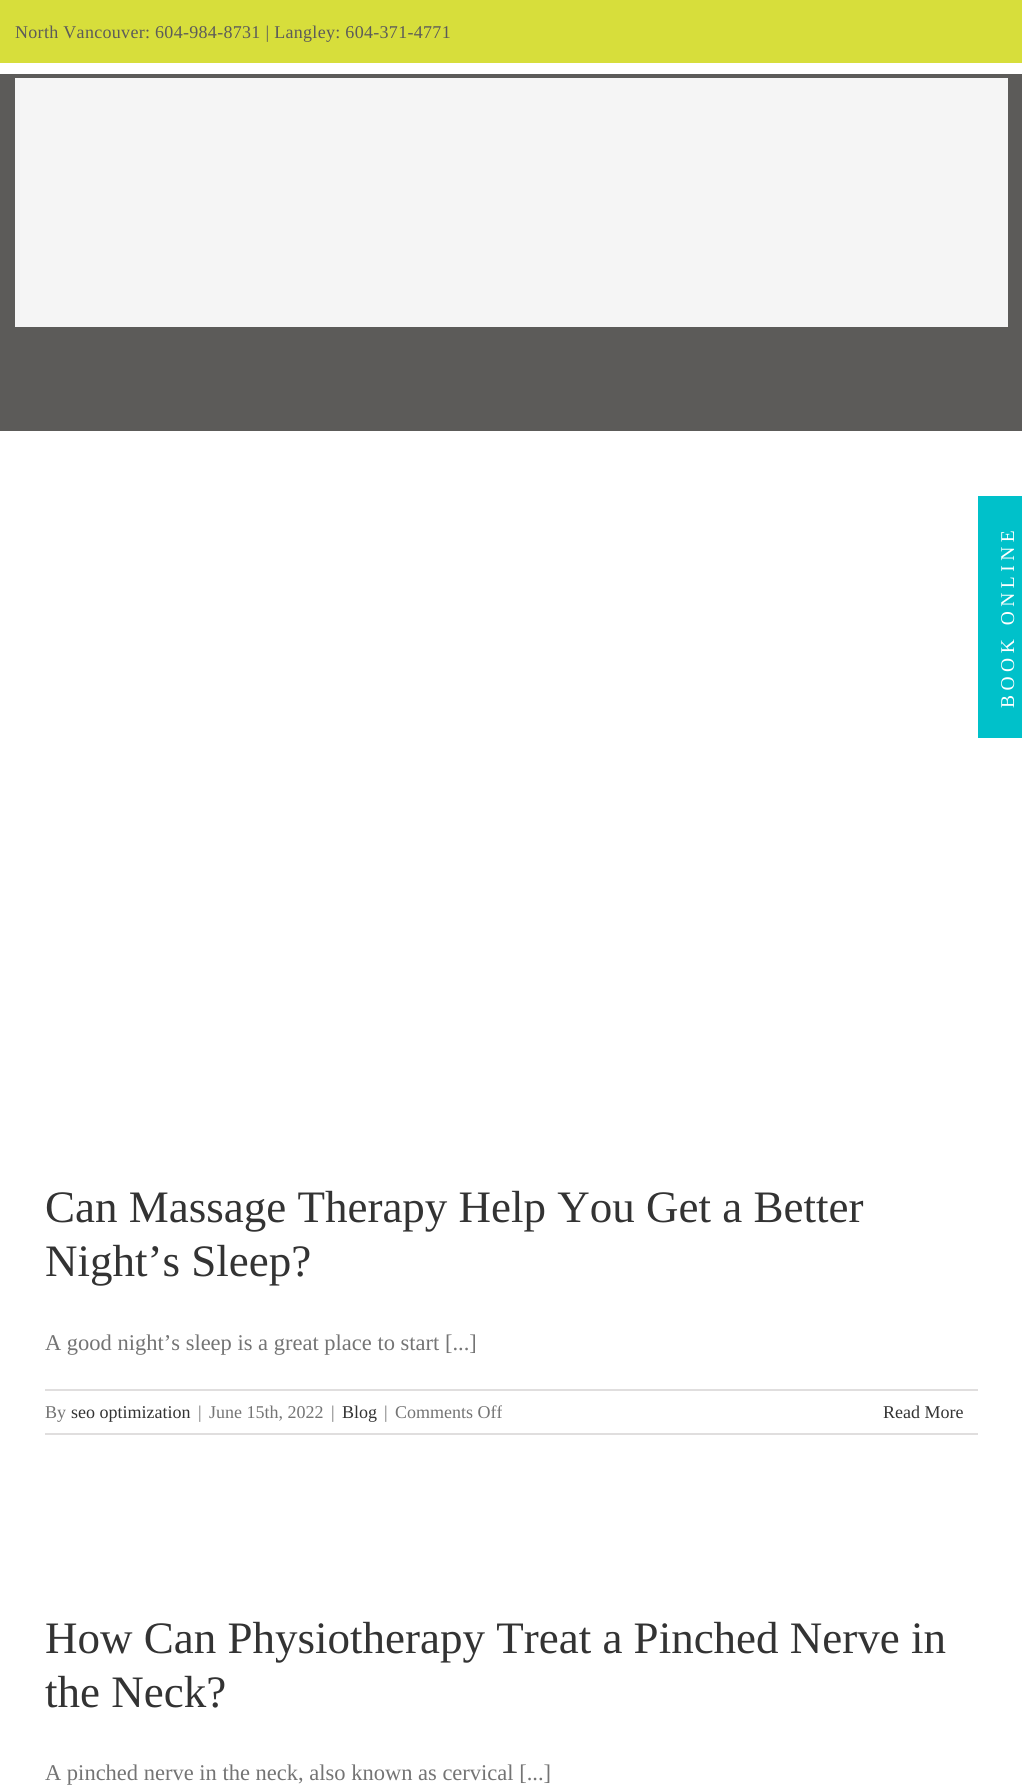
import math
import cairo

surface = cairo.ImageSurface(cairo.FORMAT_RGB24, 1022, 1791)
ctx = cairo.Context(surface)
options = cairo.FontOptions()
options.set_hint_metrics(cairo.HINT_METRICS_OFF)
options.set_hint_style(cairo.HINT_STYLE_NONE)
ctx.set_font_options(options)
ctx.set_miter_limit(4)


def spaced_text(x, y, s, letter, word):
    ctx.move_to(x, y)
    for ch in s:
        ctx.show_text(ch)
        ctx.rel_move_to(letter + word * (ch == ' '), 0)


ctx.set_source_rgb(1, 1, 1)
ctx.paint()
ctx.set_source_rgb(0.843, 0.871, 0.231)
ctx.rectangle(0, 0, 1022, 63)
ctx.fill()
ctx.select_font_face("Liberation Serif")
ctx.set_font_size(18)
ctx.set_source_rgb(0.361, 0.357, 0.349)
spaced_text(15, 38, "North Vancouver: 604-984-8731 | Langley: 604-371-4771", 0.3, 0)
ctx.rectangle(0, 74, 1022, 357)
ctx.fill()
ctx.set_source_rgba(1, 1, 1, 0.94)
ctx.rectangle(15, 78, 993, 249)
ctx.fill()
ctx.set_font_size(45)
ctx.set_source_rgb(0.2, 0.2, 0.2)
ctx.move_to(45, 1222)
ctx.show_text("Can Massage Therapy Help You Get a Better")
ctx.move_to(45, 1276)
ctx.show_text("Night’s Sleep?")
ctx.set_font_size(22.5)
ctx.set_source_rgb(0.455, 0.455, 0.455)
ctx.move_to(45, 1350)
ctx.show_text("A good night’s sleep is a great place to start [...]")
ctx.set_source_rgb(0.878, 0.871, 0.871)
ctx.rectangle(45, 1389, 933, 2)
ctx.fill()
ctx.rectangle(45, 1433, 933, 2)
ctx.fill()
ctx.set_font_size(18)
ctx.set_source_rgb(0.455, 0.455, 0.455)
ctx.move_to(45, 1418)
ctx.show_text("By")
ctx.set_source_rgb(0.2, 0.2, 0.2)
ctx.move_to(71, 1418)
ctx.show_text("seo optimization")
ctx.set_source_rgb(0.455, 0.455, 0.455)
ctx.move_to(198, 1418)
ctx.show_text("|")
ctx.move_to(209, 1418)
ctx.show_text("June 15th, 2022")
ctx.move_to(331, 1418)
ctx.show_text("|")
ctx.set_source_rgb(0.2, 0.2, 0.2)
ctx.move_to(342, 1418)
ctx.show_text("Blog")
ctx.set_source_rgb(0.455, 0.455, 0.455)
ctx.move_to(384, 1418)
ctx.show_text("|")
ctx.move_to(395, 1418)
ctx.show_text("Comments Off")
ctx.set_source_rgb(0.2, 0.2, 0.2)
ctx.move_to(883, 1418)
ctx.show_text("Read More")
ctx.set_font_size(45)
ctx.move_to(45, 1653)
ctx.show_text("How Can Physiotherapy Treat a Pinched Nerve in")
ctx.move_to(45, 1707)
ctx.show_text("the Neck?")
ctx.set_font_size(22.5)
ctx.set_source_rgb(0.455, 0.455, 0.455)
ctx.move_to(45, 1780)
ctx.show_text("A pinched nerve in the neck, also known as cervical [...]")
ctx.set_source_rgb(0, 0.757, 0.792)
ctx.rectangle(978, 496, 44, 242)
ctx.fill()
ctx.set_font_size(19.5)
ctx.set_source_rgb(1, 1, 1)
ctx.save()
ctx.translate(1014, 708)
ctx.rotate(-90 * math.pi / 180)
spaced_text(0, 0, "BOOK ONLINE", 4.5, 0)
ctx.restore()
surface.write_to_png("page.png")
